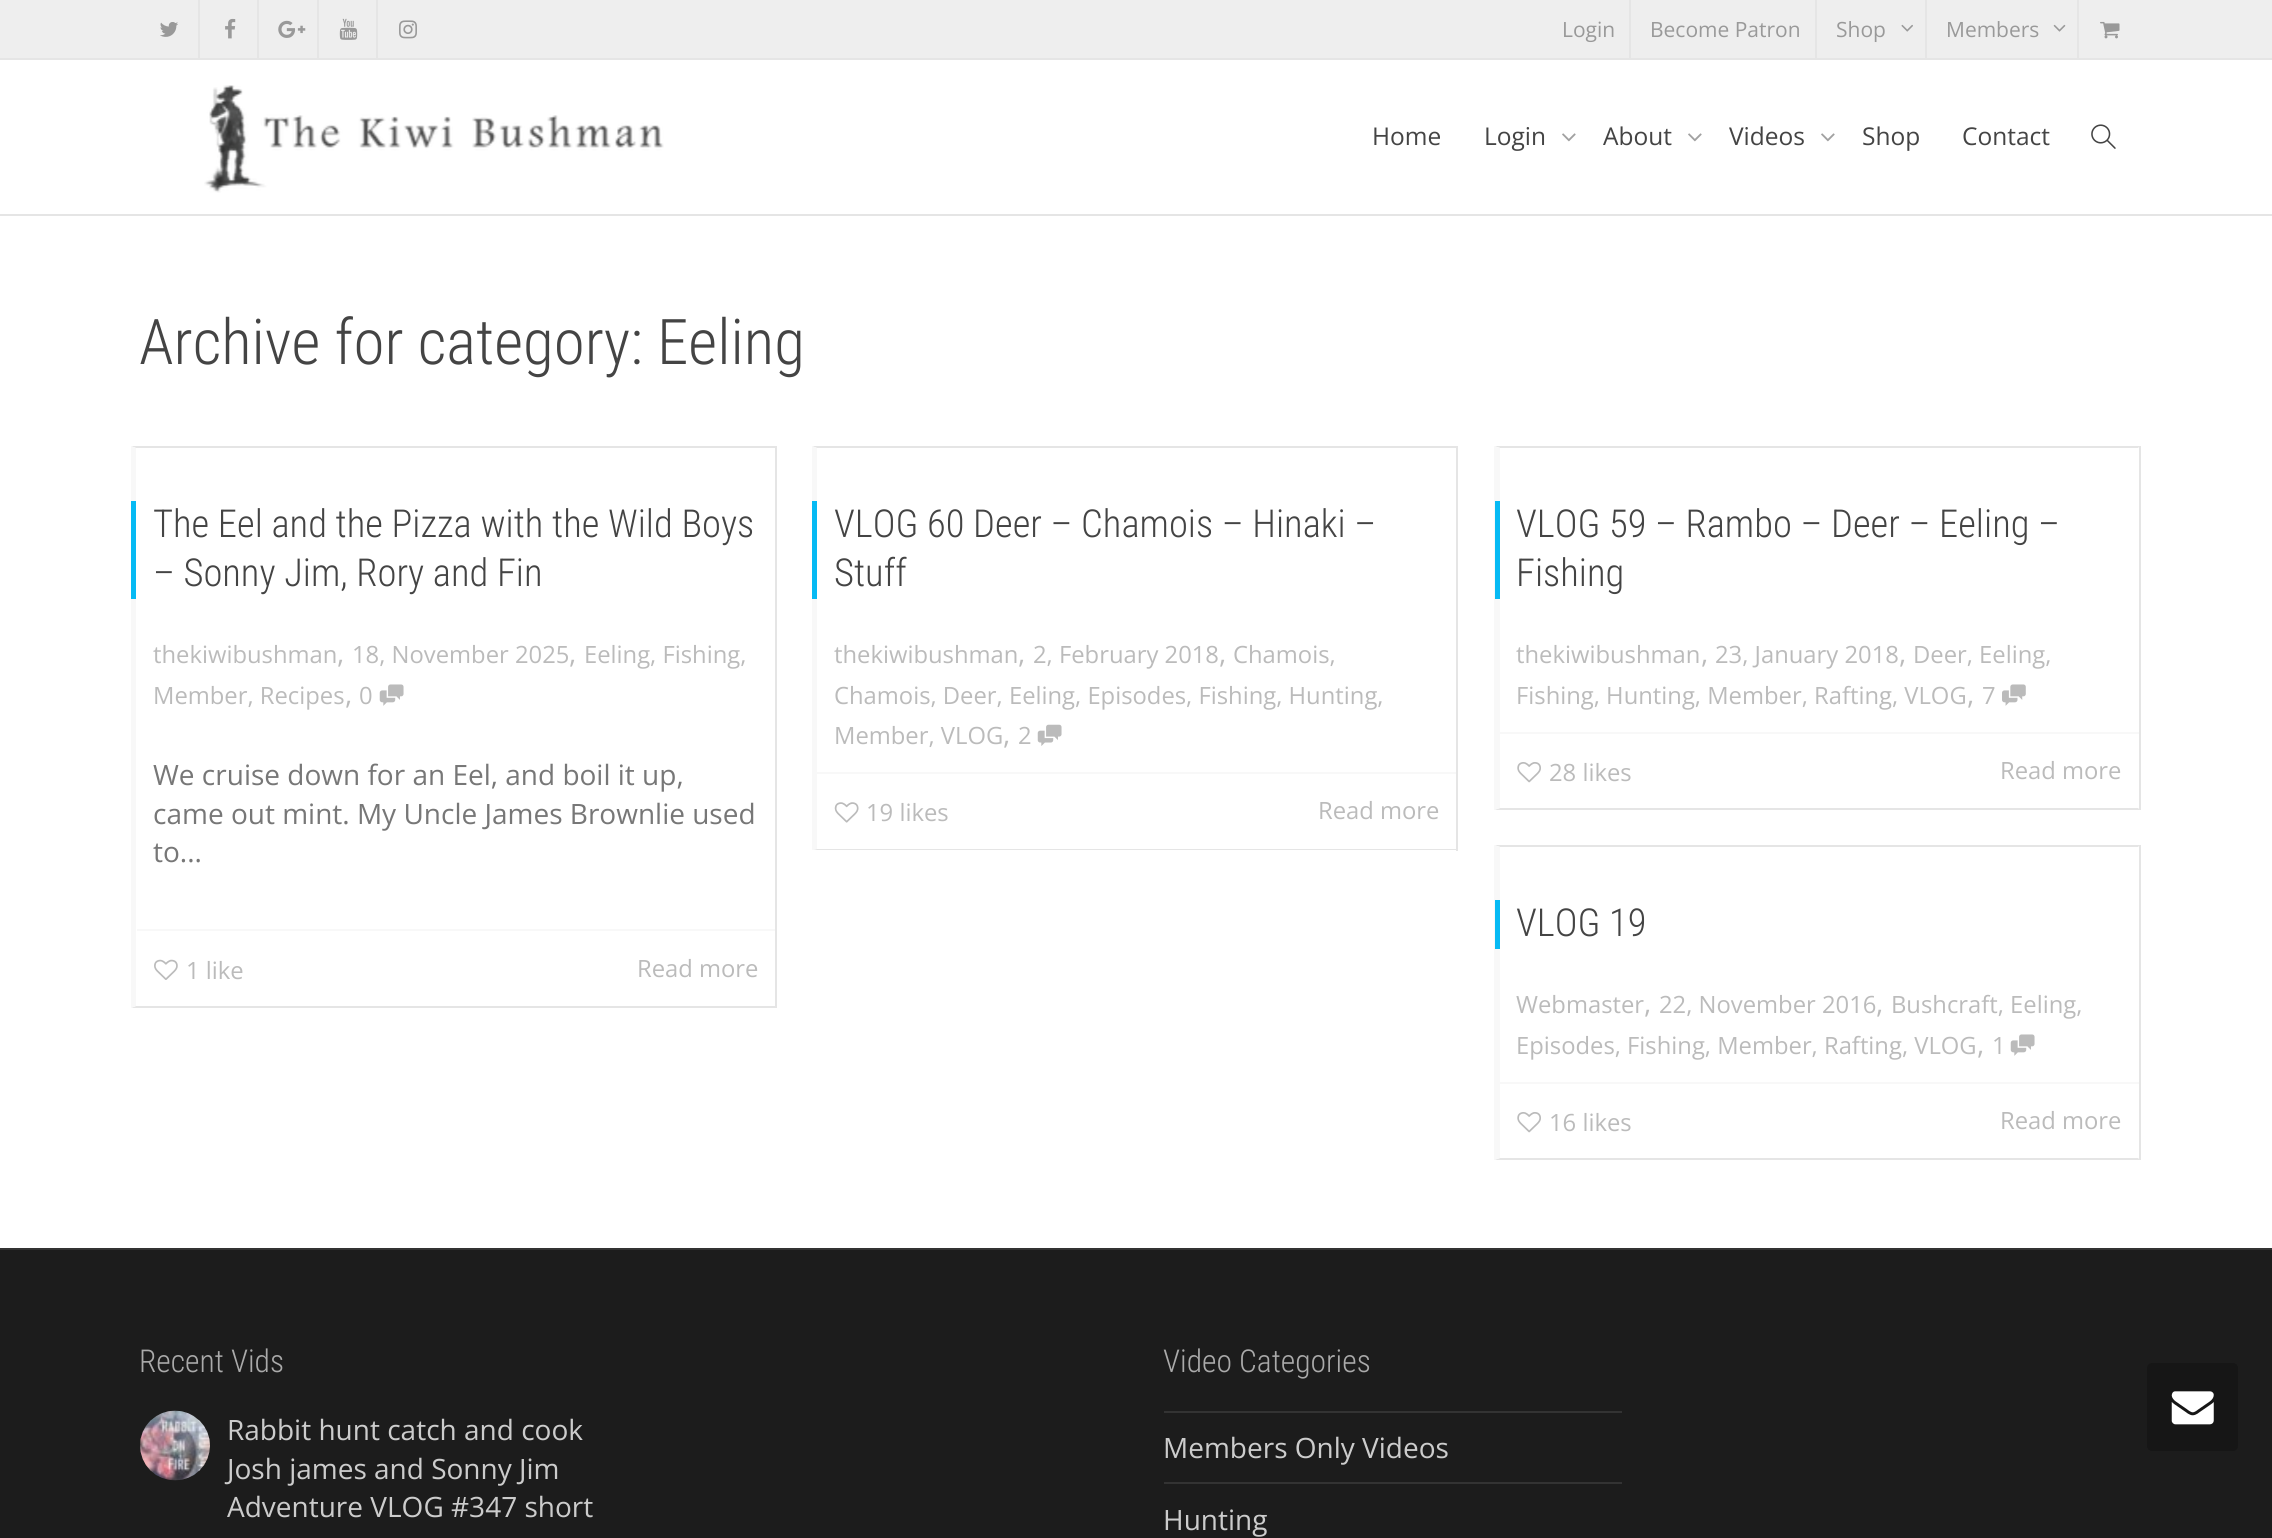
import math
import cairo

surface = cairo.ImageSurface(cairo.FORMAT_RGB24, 2272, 1538)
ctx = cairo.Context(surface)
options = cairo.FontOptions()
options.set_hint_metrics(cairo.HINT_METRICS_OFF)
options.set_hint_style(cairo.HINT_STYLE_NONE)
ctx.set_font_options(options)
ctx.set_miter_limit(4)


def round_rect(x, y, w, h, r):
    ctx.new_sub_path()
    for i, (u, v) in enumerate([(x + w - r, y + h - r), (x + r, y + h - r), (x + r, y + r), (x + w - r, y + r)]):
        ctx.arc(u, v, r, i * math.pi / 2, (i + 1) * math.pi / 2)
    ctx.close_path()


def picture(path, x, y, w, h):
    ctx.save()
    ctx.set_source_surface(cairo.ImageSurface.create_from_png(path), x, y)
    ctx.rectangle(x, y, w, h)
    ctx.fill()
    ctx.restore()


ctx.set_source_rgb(1, 1, 1)
ctx.paint()
ctx.set_source_rgb(0.933, 0.933, 0.933)
ctx.rectangle(0, 0, 2272, 58)
ctx.fill()
ctx.set_source_rgb(0.898, 0.898, 0.898)
ctx.rectangle(0, 58, 2272, 2)
ctx.fill()
ctx.rectangle(198, 0, 2, 58)
ctx.fill()
picture("img1.png", 160, 22, 18, 15)
ctx.rectangle(257, 0, 2, 58)
ctx.fill()
picture("img2.png", 225, 18, 11, 21)
ctx.rectangle(317, 0, 2, 58)
ctx.fill()
picture("img3.png", 278, 20, 28, 18)
ctx.rectangle(376, 0, 2, 58)
ctx.fill()
picture("img4.png", 339, 18, 19, 22)
picture("img5.png", 399, 20, 18, 19)
ctx.rectangle(1629, 0, 2, 58)
ctx.fill()
ctx.select_font_face("Open Sans")
ctx.set_font_size(21)
ctx.set_source_rgb(0.6, 0.6, 0.6)
ctx.move_to(1562, 37)
ctx.show_text("Login")
ctx.set_source_rgb(0.898, 0.898, 0.898)
ctx.rectangle(1815, 0, 2, 58)
ctx.fill()
ctx.set_source_rgb(0.6, 0.6, 0.6)
ctx.move_to(1650, 37)
ctx.show_text("Become Patron")
ctx.set_source_rgb(0.898, 0.898, 0.898)
ctx.rectangle(1925, 0, 2, 58)
ctx.fill()
ctx.set_source_rgb(0.6, 0.6, 0.6)
ctx.move_to(1836, 37)
ctx.show_text("Shop")
picture("img6.png", 1901, 24, 12, 8)
ctx.set_source_rgb(0.898, 0.898, 0.898)
ctx.rectangle(2077, 0, 2, 58)
ctx.fill()
ctx.set_source_rgb(0.6, 0.6, 0.6)
ctx.move_to(1946, 37)
ctx.show_text("Members")
picture("img7.png", 2053, 24, 13, 8)
picture("img8.png", 2100, 21, 20, 18)
ctx.set_source_rgb(0.898, 0.898, 0.898)
ctx.rectangle(0, 214, 2272, 2)
ctx.fill()
picture("img9.png", 204, 85, 460, 108)
ctx.set_font_size(24.5)
ctx.set_source_rgb(0.267, 0.267, 0.267)
ctx.move_to(1372, 145)
ctx.show_text("Home")
ctx.move_to(1484, 145)
ctx.show_text("Login")
picture("img10.png", 1562, 133, 14, 9)
ctx.move_to(1603, 145)
ctx.show_text("About")
picture("img10.png", 1688, 133, 14, 9)
ctx.move_to(1729, 145)
ctx.show_text("Videos")
picture("img10.png", 1821, 133, 14, 9)
ctx.move_to(1862, 145)
ctx.show_text("Shop")
ctx.move_to(1962, 145)
ctx.show_text("Contact")
picture("img11.png", 2091, 124, 25, 25)
ctx.select_font_face("Roboto Condensed Light")
ctx.set_font_size(63)
ctx.move_to(139, 364)
ctx.show_text("Archive for category: Eeling")
ctx.set_source_rgb(0.898, 0.898, 0.898)
ctx.new_path()
ctx.move_to(131, 446)
ctx.line_to(777, 446)
ctx.line_to(775, 448)
ctx.line_to(136, 448)
ctx.close_path()
ctx.fill()
ctx.rectangle(775, 446, 2, 562)
ctx.fill()
ctx.new_path()
ctx.move_to(777, 1008)
ctx.line_to(131, 1008)
ctx.line_to(136, 1006)
ctx.line_to(775, 1006)
ctx.close_path()
ctx.fill()
ctx.set_source_rgb(0.969, 0.969, 0.969)
ctx.new_path()
ctx.move_to(131, 1008)
ctx.line_to(131, 446)
ctx.line_to(136, 448)
ctx.line_to(136, 1006)
ctx.close_path()
ctx.fill()
ctx.set_source_rgb(0.027, 0.729, 0.957)
ctx.rectangle(131, 501, 5, 98)
ctx.fill()
ctx.set_font_size(38.5)
ctx.set_source_rgb(0.267, 0.267, 0.267)
ctx.move_to(153, 537)
ctx.show_text("The Eel and the Pizza with the Wild Boys")
ctx.move_to(153, 586)
ctx.show_text("– Sonny Jim, Rory and Fin")
ctx.select_font_face("Open Sans")
ctx.set_font_size(23.8)
ctx.set_source_rgb(0.733, 0.733, 0.733)
ctx.move_to(153, 663)
ctx.show_text("thekiwibushman")
ctx.set_font_size(28)
ctx.move_to(337, 663)
ctx.show_text(",")
ctx.set_font_size(23.8)
ctx.move_to(352, 663)
ctx.show_text("18, November 2025")
ctx.set_font_size(28)
ctx.move_to(569, 663)
ctx.show_text(",")
ctx.set_font_size(23.8)
ctx.move_to(584, 663)
ctx.show_text("Eeling, Fishing,")
ctx.move_to(153, 704)
ctx.show_text("Member, Recipes")
ctx.set_font_size(28)
ctx.move_to(345, 704)
ctx.show_text(",")
ctx.set_font_size(23.8)
ctx.move_to(359, 704)
ctx.show_text("0")
picture("img12.png", 379, 684, 25, 22)
ctx.set_font_size(28)
ctx.set_source_rgb(0.467, 0.467, 0.467)
ctx.move_to(153, 785)
ctx.show_text("We cruise down for an Eel, and boil it up,")
ctx.move_to(153, 824)
ctx.show_text("came out mint. My Uncle James Brownlie used")
ctx.move_to(153, 862)
ctx.show_text("to...")
ctx.set_source_rgb(0.969, 0.969, 0.969)
ctx.rectangle(137, 929, 638, 2)
ctx.fill()
picture("img13.png", 154, 959, 24, 21)
ctx.set_font_size(23.8)
ctx.set_source_rgb(0.733, 0.733, 0.733)
ctx.move_to(186, 979)
ctx.show_text("1 like")
ctx.move_to(637, 977)
ctx.show_text("Read more")
ctx.set_source_rgb(0.898, 0.898, 0.898)
ctx.new_path()
ctx.move_to(812, 446)
ctx.line_to(1458, 446)
ctx.line_to(1456, 448)
ctx.line_to(817, 448)
ctx.close_path()
ctx.fill()
ctx.rectangle(1456, 446, 2, 405)
ctx.fill()
ctx.new_path()
ctx.move_to(1458, 850)
ctx.line_to(812, 850)
ctx.line_to(817, 849)
ctx.line_to(1456, 849)
ctx.close_path()
ctx.fill()
ctx.set_source_rgb(0.969, 0.969, 0.969)
ctx.new_path()
ctx.move_to(812, 850)
ctx.line_to(812, 446)
ctx.line_to(817, 448)
ctx.line_to(817, 849)
ctx.close_path()
ctx.fill()
ctx.set_source_rgb(0.027, 0.729, 0.957)
ctx.rectangle(812, 501, 5, 98)
ctx.fill()
ctx.select_font_face("Roboto Condensed Light")
ctx.set_font_size(38.5)
ctx.set_source_rgb(0.267, 0.267, 0.267)
ctx.move_to(834, 537)
ctx.show_text("VLOG 60 Deer – Chamois – Hinaki –")
ctx.move_to(834, 586)
ctx.show_text("Stuff")
ctx.select_font_face("Open Sans")
ctx.set_font_size(23.8)
ctx.set_source_rgb(0.733, 0.733, 0.733)
ctx.move_to(834, 663)
ctx.show_text("thekiwibushman")
ctx.set_font_size(28)
ctx.move_to(1018, 663)
ctx.show_text(",")
ctx.set_font_size(23.8)
ctx.move_to(1033, 663)
ctx.show_text("2, February 2018")
ctx.set_font_size(28)
ctx.move_to(1219, 663)
ctx.show_text(",")
ctx.set_font_size(23.8)
ctx.move_to(1233, 663)
ctx.show_text("Chamois,")
ctx.move_to(834, 704)
ctx.show_text("Chamois, Deer, Eeling, Episodes, Fishing, Hunting,")
ctx.move_to(834, 744)
ctx.show_text("Member, VLOG")
ctx.set_font_size(28)
ctx.move_to(1003, 744)
ctx.show_text(",")
ctx.set_font_size(23.8)
ctx.move_to(1018, 744)
ctx.show_text("2")
picture("img14.png", 1037, 724, 25, 22)
ctx.set_source_rgb(0.969, 0.969, 0.969)
ctx.rectangle(817, 772, 639, 2)
ctx.fill()
picture("img15.png", 834, 802, 25, 21)
ctx.set_source_rgb(0.733, 0.733, 0.733)
ctx.move_to(866, 821)
ctx.show_text("19 likes")
ctx.move_to(1318, 819)
ctx.show_text("Read more")
ctx.set_source_rgb(0.898, 0.898, 0.898)
ctx.new_path()
ctx.move_to(1494, 446)
ctx.line_to(2140, 446)
ctx.line_to(2138, 448)
ctx.line_to(1500, 448)
ctx.close_path()
ctx.fill()
ctx.rectangle(2139, 446, 2, 364)
ctx.fill()
ctx.new_path()
ctx.move_to(2140, 810)
ctx.line_to(1494, 810)
ctx.line_to(1500, 808)
ctx.line_to(2138, 808)
ctx.close_path()
ctx.fill()
ctx.set_source_rgb(0.969, 0.969, 0.969)
ctx.new_path()
ctx.move_to(1494, 810)
ctx.line_to(1494, 446)
ctx.line_to(1500, 448)
ctx.line_to(1500, 808)
ctx.close_path()
ctx.fill()
ctx.set_source_rgb(0.027, 0.729, 0.957)
ctx.rectangle(1495, 501, 5, 98)
ctx.fill()
ctx.select_font_face("Roboto Condensed Light")
ctx.set_font_size(38.5)
ctx.set_source_rgb(0.267, 0.267, 0.267)
ctx.move_to(1516, 537)
ctx.show_text("VLOG 59 – Rambo – Deer – Eeling –")
ctx.move_to(1516, 586)
ctx.show_text("Fishing")
ctx.select_font_face("Open Sans")
ctx.set_font_size(23.8)
ctx.set_source_rgb(0.733, 0.733, 0.733)
ctx.move_to(1516, 663)
ctx.show_text("thekiwibushman")
ctx.set_font_size(28)
ctx.move_to(1701, 663)
ctx.show_text(",")
ctx.set_font_size(23.8)
ctx.move_to(1715, 663)
ctx.show_text("23, January 2018")
ctx.set_font_size(28)
ctx.move_to(1899, 663)
ctx.show_text(",")
ctx.set_font_size(23.8)
ctx.move_to(1913, 663)
ctx.show_text("Deer, Eeling,")
ctx.move_to(1516, 704)
ctx.show_text("Fishing, Hunting, Member, Rafting, VLOG")
ctx.set_font_size(28)
ctx.move_to(1967, 704)
ctx.show_text(",")
ctx.set_font_size(23.8)
ctx.move_to(1982, 704)
ctx.show_text("7")
picture("img16.png", 2002, 684, 24, 22)
ctx.set_source_rgb(0.969, 0.969, 0.969)
ctx.rectangle(1500, 732, 639, 2)
ctx.fill()
picture("img17.png", 1517, 762, 24, 21)
ctx.set_source_rgb(0.733, 0.733, 0.733)
ctx.move_to(1549, 781)
ctx.show_text("28 likes")
ctx.move_to(2000, 779)
ctx.show_text("Read more")
ctx.set_source_rgb(0.898, 0.898, 0.898)
ctx.new_path()
ctx.move_to(1494, 845)
ctx.line_to(2140, 845)
ctx.line_to(2138, 847)
ctx.line_to(1500, 847)
ctx.close_path()
ctx.fill()
ctx.rectangle(2139, 845, 2, 315)
ctx.fill()
ctx.new_path()
ctx.move_to(2140, 1160)
ctx.line_to(1494, 1160)
ctx.line_to(1500, 1158)
ctx.line_to(2138, 1158)
ctx.close_path()
ctx.fill()
ctx.set_source_rgb(0.969, 0.969, 0.969)
ctx.new_path()
ctx.move_to(1494, 1160)
ctx.line_to(1494, 845)
ctx.line_to(1500, 847)
ctx.line_to(1500, 1158)
ctx.close_path()
ctx.fill()
ctx.set_source_rgb(0.027, 0.729, 0.957)
ctx.rectangle(1495, 900, 5, 49)
ctx.fill()
ctx.select_font_face("Roboto Condensed Light")
ctx.set_font_size(38.5)
ctx.set_source_rgb(0.267, 0.267, 0.267)
ctx.move_to(1516, 936)
ctx.show_text("VLOG 19")
ctx.select_font_face("Open Sans")
ctx.set_font_size(23.8)
ctx.set_source_rgb(0.733, 0.733, 0.733)
ctx.move_to(1516, 1013)
ctx.show_text("Webmaster")
ctx.set_font_size(28)
ctx.move_to(1644, 1013)
ctx.show_text(",")
ctx.set_font_size(23.8)
ctx.move_to(1659, 1013)
ctx.show_text("22, November 2016")
ctx.set_font_size(28)
ctx.move_to(1876, 1013)
ctx.show_text(",")
ctx.set_font_size(23.8)
ctx.move_to(1891, 1013)
ctx.show_text("Bushcraft, Eeling,")
ctx.move_to(1516, 1054)
ctx.show_text("Episodes, Fishing, Member, Rafting, VLOG")
ctx.set_font_size(28)
ctx.move_to(1977, 1054)
ctx.show_text(",")
ctx.set_font_size(23.8)
ctx.move_to(1992, 1054)
ctx.show_text("1")
picture("img12.png", 2010, 1034, 25, 22)
ctx.set_source_rgb(0.969, 0.969, 0.969)
ctx.rectangle(1500, 1082, 639, 2)
ctx.fill()
picture("img17.png", 1517, 1112, 24, 21)
ctx.set_source_rgb(0.733, 0.733, 0.733)
ctx.move_to(1549, 1131)
ctx.show_text("16 likes")
ctx.move_to(2000, 1129)
ctx.show_text("Read more")
ctx.set_source_rgb(0.11, 0.11, 0.11)
ctx.rectangle(0, 1250, 2272, 288)
ctx.fill()
ctx.set_source_rgb(0.2, 0.2, 0.2)
ctx.rectangle(0, 1248, 2272, 2)
ctx.fill()
ctx.select_font_face("Roboto Condensed Light")
ctx.set_font_size(31.5)
ctx.set_source_rgb(0.667, 0.667, 0.667)
ctx.move_to(139, 1372)
ctx.show_text("Recent Vids")
picture("img18.png", 140, 1410, 70, 71)
ctx.select_font_face("Open Sans")
ctx.set_font_size(28)
ctx.set_source_rgb(0.8, 0.8, 0.8)
ctx.move_to(227, 1440)
ctx.show_text("Rabbit hunt catch and cook")
ctx.move_to(227, 1479)
ctx.show_text("Josh james and Sonny Jim")
ctx.move_to(227, 1517)
ctx.show_text("Adventure VLOG #347 short")
ctx.select_font_face("Roboto Condensed Light")
ctx.set_font_size(31.5)
ctx.set_source_rgb(0.667, 0.667, 0.667)
ctx.move_to(1163, 1372)
ctx.show_text("Video Categories")
ctx.set_source_rgb(0.2, 0.2, 0.2)
ctx.rectangle(1164, 1411, 458, 2)
ctx.fill()
ctx.rectangle(1164, 1482, 458, 2)
ctx.fill()
ctx.select_font_face("Open Sans")
ctx.set_font_size(28)
ctx.set_source_rgb(0.8, 0.8, 0.8)
ctx.move_to(1163, 1458)
ctx.show_text("Members Only Videos")
ctx.move_to(1163, 1530)
ctx.show_text("Hunting")
ctx.set_source_rgb(0.086, 0.086, 0.086)
round_rect(2147, 1363, 91, 88, 5)
ctx.fill()
picture("img19.png", 2171, 1391, 43, 34)
surface.write_to_png("page.png")
